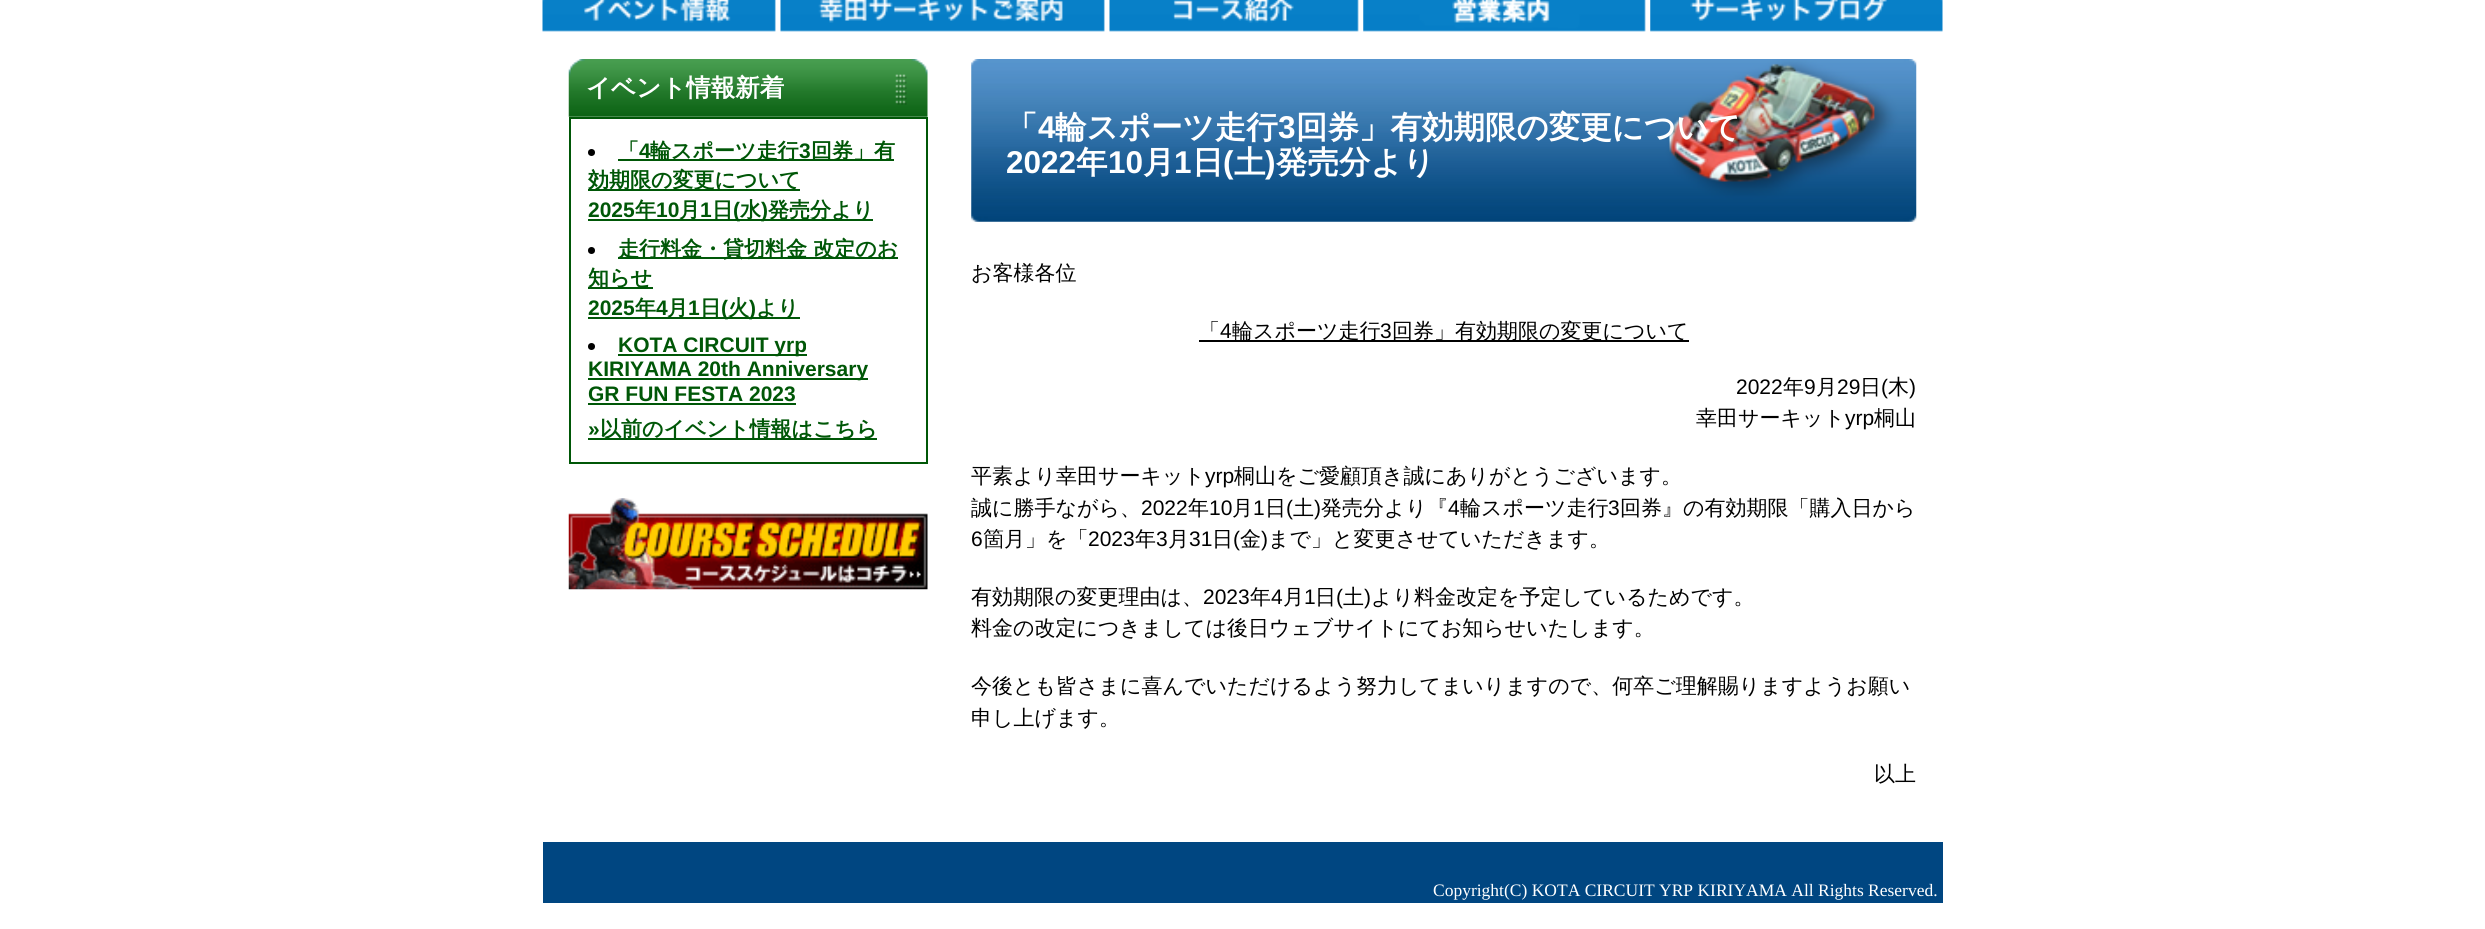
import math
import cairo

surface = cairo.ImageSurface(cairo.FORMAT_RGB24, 2485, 929)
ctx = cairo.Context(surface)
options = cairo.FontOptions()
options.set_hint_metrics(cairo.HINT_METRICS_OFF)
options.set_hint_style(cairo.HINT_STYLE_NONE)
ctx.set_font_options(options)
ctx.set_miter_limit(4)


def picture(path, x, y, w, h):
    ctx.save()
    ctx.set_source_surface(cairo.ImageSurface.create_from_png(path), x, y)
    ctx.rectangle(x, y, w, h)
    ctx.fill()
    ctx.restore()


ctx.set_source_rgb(1, 1, 1)
ctx.paint()
picture("img1.png", 542, 0, 234, 32)
picture("img2.png", 780, 0, 325, 32)
picture("img3.png", 1109, 0, 250, 32)
picture("img4.png", 1363, 0, 283, 32)
picture("img5.png", 1650, 0, 293, 32)
picture("img6.png", 568, 59, 360, 58)
ctx.select_font_face("WenQuanYi Zen Hei", cairo.FONT_SLANT_NORMAL, cairo.FONT_WEIGHT_BOLD)
ctx.set_font_size(24.5)
ctx.set_source_rgb(1, 1, 1)
ctx.move_to(586, 96)
ctx.show_text("イベント情報新着")
ctx.rectangle(570, 118, 357, 345)
ctx.set_source_rgb(0, 0.341, 0.031)
ctx.stroke()
ctx.set_source_rgb(0, 0, 0)
ctx.arc(591.5, 152.5, 3.5, 0, 2 * math.pi)
ctx.fill()
ctx.set_font_size(21)
ctx.set_source_rgb(0, 0.341, 0.031)
ctx.move_to(618, 158)
ctx.show_text("「")
ctx.select_font_face("Liberation Sans", cairo.FONT_SLANT_NORMAL, cairo.FONT_WEIGHT_BOLD)
ctx.move_to(639, 158)
ctx.show_text("4")
ctx.rectangle(618, 159, 276, 2)
ctx.fill()
ctx.select_font_face("WenQuanYi Zen Hei", cairo.FONT_SLANT_NORMAL, cairo.FONT_WEIGHT_BOLD)
ctx.move_to(650, 158)
ctx.show_text("輪スポーツ走行")
ctx.select_font_face("Liberation Sans", cairo.FONT_SLANT_NORMAL, cairo.FONT_WEIGHT_BOLD)
ctx.move_to(799, 158)
ctx.show_text("3")
ctx.select_font_face("WenQuanYi Zen Hei", cairo.FONT_SLANT_NORMAL, cairo.FONT_WEIGHT_BOLD)
ctx.move_to(811, 158)
ctx.show_text("回券」有")
ctx.rectangle(588, 189, 212, 2)
ctx.fill()
ctx.move_to(588, 187)
ctx.show_text("効期限の変更について")
ctx.select_font_face("Liberation Sans", cairo.FONT_SLANT_NORMAL, cairo.FONT_WEIGHT_BOLD)
ctx.move_to(588, 217)
ctx.show_text("2025")
ctx.rectangle(588, 219, 285, 2)
ctx.fill()
ctx.select_font_face("WenQuanYi Zen Hei", cairo.FONT_SLANT_NORMAL, cairo.FONT_WEIGHT_BOLD)
ctx.move_to(635, 217)
ctx.show_text("年")
ctx.select_font_face("Liberation Sans", cairo.FONT_SLANT_NORMAL, cairo.FONT_WEIGHT_BOLD)
ctx.move_to(656, 217)
ctx.show_text("10")
ctx.select_font_face("WenQuanYi Zen Hei", cairo.FONT_SLANT_NORMAL, cairo.FONT_WEIGHT_BOLD)
ctx.move_to(679, 217)
ctx.show_text("月")
ctx.select_font_face("Liberation Sans", cairo.FONT_SLANT_NORMAL, cairo.FONT_WEIGHT_BOLD)
ctx.move_to(700, 217)
ctx.show_text("1")
ctx.select_font_face("WenQuanYi Zen Hei", cairo.FONT_SLANT_NORMAL, cairo.FONT_WEIGHT_BOLD)
ctx.move_to(712, 217)
ctx.show_text("日")
ctx.select_font_face("Liberation Sans", cairo.FONT_SLANT_NORMAL, cairo.FONT_WEIGHT_BOLD)
ctx.move_to(733, 217)
ctx.show_text("(")
ctx.select_font_face("WenQuanYi Zen Hei", cairo.FONT_SLANT_NORMAL, cairo.FONT_WEIGHT_BOLD)
ctx.move_to(740, 217)
ctx.show_text("水")
ctx.select_font_face("Liberation Sans", cairo.FONT_SLANT_NORMAL, cairo.FONT_WEIGHT_BOLD)
ctx.move_to(761, 217)
ctx.show_text(")")
ctx.select_font_face("WenQuanYi Zen Hei", cairo.FONT_SLANT_NORMAL, cairo.FONT_WEIGHT_BOLD)
ctx.move_to(768, 217)
ctx.show_text("発売分より")
ctx.set_source_rgb(0, 0, 0)
ctx.new_path()
ctx.arc(591.5, 250.5, 3.5, 0, 2 * math.pi)
ctx.fill()
ctx.set_source_rgb(0, 0.341, 0.031)
ctx.rectangle(618, 257, 280, 2)
ctx.fill()
ctx.move_to(618, 256)
ctx.show_text("走行料金・貸切料金 改定のお")
ctx.rectangle(588, 287, 65, 2)
ctx.fill()
ctx.move_to(588, 285)
ctx.show_text("知らせ")
ctx.select_font_face("Liberation Sans", cairo.FONT_SLANT_NORMAL, cairo.FONT_WEIGHT_BOLD)
ctx.move_to(588, 315)
ctx.show_text("2025")
ctx.rectangle(588, 317, 212, 2)
ctx.fill()
ctx.select_font_face("WenQuanYi Zen Hei", cairo.FONT_SLANT_NORMAL, cairo.FONT_WEIGHT_BOLD)
ctx.move_to(635, 315)
ctx.show_text("年")
ctx.select_font_face("Liberation Sans", cairo.FONT_SLANT_NORMAL, cairo.FONT_WEIGHT_BOLD)
ctx.move_to(656, 315)
ctx.show_text("4")
ctx.select_font_face("WenQuanYi Zen Hei", cairo.FONT_SLANT_NORMAL, cairo.FONT_WEIGHT_BOLD)
ctx.move_to(667, 315)
ctx.show_text("月")
ctx.select_font_face("Liberation Sans", cairo.FONT_SLANT_NORMAL, cairo.FONT_WEIGHT_BOLD)
ctx.move_to(688, 315)
ctx.show_text("1")
ctx.select_font_face("WenQuanYi Zen Hei", cairo.FONT_SLANT_NORMAL, cairo.FONT_WEIGHT_BOLD)
ctx.move_to(700, 315)
ctx.show_text("日")
ctx.select_font_face("Liberation Sans", cairo.FONT_SLANT_NORMAL, cairo.FONT_WEIGHT_BOLD)
ctx.move_to(721, 315)
ctx.show_text("(")
ctx.select_font_face("WenQuanYi Zen Hei", cairo.FONT_SLANT_NORMAL, cairo.FONT_WEIGHT_BOLD)
ctx.move_to(728, 315)
ctx.show_text("火")
ctx.select_font_face("Liberation Sans", cairo.FONT_SLANT_NORMAL, cairo.FONT_WEIGHT_BOLD)
ctx.move_to(749, 315)
ctx.show_text(")")
ctx.select_font_face("WenQuanYi Zen Hei", cairo.FONT_SLANT_NORMAL, cairo.FONT_WEIGHT_BOLD)
ctx.move_to(756, 315)
ctx.show_text("より")
ctx.set_source_rgb(0, 0, 0)
ctx.new_path()
ctx.arc(591.5, 346.5, 3.5, 0, 2 * math.pi)
ctx.fill()
ctx.set_source_rgb(0, 0.341, 0.031)
ctx.rectangle(618, 354, 189, 2)
ctx.fill()
ctx.select_font_face("Liberation Sans", cairo.FONT_SLANT_NORMAL, cairo.FONT_WEIGHT_BOLD)
ctx.move_to(618, 352)
ctx.show_text("KOTA CIRCUIT yrp")
ctx.rectangle(588, 378, 280, 2)
ctx.fill()
ctx.move_to(588, 376)
ctx.show_text("KIRIYAMA 20th Anniversary")
ctx.move_to(588, 401)
ctx.show_text("GR FUN FESTA 2023")
ctx.rectangle(588, 403, 208, 2)
ctx.fill()
ctx.move_to(588, 436)
ctx.show_text("»")
ctx.rectangle(588, 438, 289, 2)
ctx.fill()
ctx.select_font_face("WenQuanYi Zen Hei", cairo.FONT_SLANT_NORMAL, cairo.FONT_WEIGHT_BOLD)
ctx.move_to(600, 436)
ctx.show_text("以前のイベント情報はこちら")
picture("img7.png", 568, 498, 360, 92)
picture("img8.png", 971, 59, 946, 163)
ctx.set_font_size(31.5)
ctx.set_source_rgb(1, 1, 1)
ctx.move_to(1006, 138)
ctx.show_text("「")
ctx.select_font_face("Liberation Sans", cairo.FONT_SLANT_NORMAL, cairo.FONT_WEIGHT_BOLD)
ctx.move_to(1038, 138)
ctx.show_text("4")
ctx.select_font_face("WenQuanYi Zen Hei", cairo.FONT_SLANT_NORMAL, cairo.FONT_WEIGHT_BOLD)
ctx.move_to(1055, 138)
ctx.show_text("輪スポーツ走行")
ctx.select_font_face("Liberation Sans", cairo.FONT_SLANT_NORMAL, cairo.FONT_WEIGHT_BOLD)
ctx.move_to(1278, 138)
ctx.show_text("3")
ctx.select_font_face("WenQuanYi Zen Hei", cairo.FONT_SLANT_NORMAL, cairo.FONT_WEIGHT_BOLD)
ctx.move_to(1296, 138)
ctx.show_text("回券」有効期限の変更について")
ctx.select_font_face("Liberation Sans", cairo.FONT_SLANT_NORMAL, cairo.FONT_WEIGHT_BOLD)
ctx.move_to(1006, 173)
ctx.show_text("2022")
ctx.select_font_face("WenQuanYi Zen Hei", cairo.FONT_SLANT_NORMAL, cairo.FONT_WEIGHT_BOLD)
ctx.move_to(1076, 173)
ctx.show_text("年")
ctx.select_font_face("Liberation Sans", cairo.FONT_SLANT_NORMAL, cairo.FONT_WEIGHT_BOLD)
ctx.move_to(1108, 173)
ctx.show_text("10")
ctx.select_font_face("WenQuanYi Zen Hei", cairo.FONT_SLANT_NORMAL, cairo.FONT_WEIGHT_BOLD)
ctx.move_to(1143, 173)
ctx.show_text("月")
ctx.select_font_face("Liberation Sans", cairo.FONT_SLANT_NORMAL, cairo.FONT_WEIGHT_BOLD)
ctx.move_to(1174, 173)
ctx.show_text("1")
ctx.select_font_face("WenQuanYi Zen Hei", cairo.FONT_SLANT_NORMAL, cairo.FONT_WEIGHT_BOLD)
ctx.move_to(1192, 173)
ctx.show_text("日")
ctx.select_font_face("Liberation Sans", cairo.FONT_SLANT_NORMAL, cairo.FONT_WEIGHT_BOLD)
ctx.move_to(1223, 173)
ctx.show_text("(")
ctx.select_font_face("WenQuanYi Zen Hei", cairo.FONT_SLANT_NORMAL, cairo.FONT_WEIGHT_BOLD)
ctx.move_to(1234, 173)
ctx.show_text("土")
ctx.select_font_face("Liberation Sans", cairo.FONT_SLANT_NORMAL, cairo.FONT_WEIGHT_BOLD)
ctx.move_to(1265, 173)
ctx.show_text(")")
ctx.select_font_face("WenQuanYi Zen Hei", cairo.FONT_SLANT_NORMAL, cairo.FONT_WEIGHT_BOLD)
ctx.move_to(1276, 173)
ctx.show_text("発売分より")
ctx.select_font_face("WenQuanYi Zen Hei Medium")
ctx.set_font_size(21)
ctx.set_source_rgb(0, 0, 0)
ctx.move_to(971, 280)
ctx.show_text("お客様各位")
ctx.move_to(1199, 338)
ctx.show_text("「")
ctx.select_font_face("Liberation Sans")
ctx.move_to(1220, 338)
ctx.show_text("4")
ctx.rectangle(1199, 340, 490, 2)
ctx.fill()
ctx.select_font_face("WenQuanYi Zen Hei Medium")
ctx.move_to(1232, 338)
ctx.show_text("輪スポーツ走行")
ctx.select_font_face("Liberation Sans")
ctx.move_to(1380, 338)
ctx.show_text("3")
ctx.select_font_face("WenQuanYi Zen Hei Medium")
ctx.move_to(1392, 338)
ctx.show_text("回券」有効期限の変更について")
ctx.select_font_face("Liberation Sans")
ctx.move_to(1736, 394)
ctx.show_text("2022")
ctx.select_font_face("WenQuanYi Zen Hei Medium")
ctx.move_to(1783, 394)
ctx.show_text("年")
ctx.select_font_face("Liberation Sans")
ctx.move_to(1804, 394)
ctx.show_text("9")
ctx.select_font_face("WenQuanYi Zen Hei Medium")
ctx.move_to(1816, 394)
ctx.show_text("月")
ctx.select_font_face("Liberation Sans")
ctx.move_to(1837, 394)
ctx.show_text("29")
ctx.select_font_face("WenQuanYi Zen Hei Medium")
ctx.move_to(1860, 394)
ctx.show_text("日")
ctx.select_font_face("Liberation Sans")
ctx.move_to(1881, 394)
ctx.show_text("(")
ctx.select_font_face("WenQuanYi Zen Hei Medium")
ctx.move_to(1888, 394)
ctx.show_text("木")
ctx.select_font_face("Liberation Sans")
ctx.move_to(1909, 394)
ctx.show_text(")")
ctx.select_font_face("WenQuanYi Zen Hei Medium")
ctx.move_to(1696, 425)
ctx.show_text("幸田サーキット")
ctx.select_font_face("Liberation Sans")
ctx.move_to(1845, 425)
ctx.show_text("yrp")
ctx.select_font_face("WenQuanYi Zen Hei Medium")
ctx.move_to(1874, 425)
ctx.show_text("桐山")
ctx.move_to(971, 483)
ctx.show_text("平素より幸田サーキット")
ctx.select_font_face("Liberation Sans")
ctx.move_to(1205, 483)
ctx.show_text("yrp")
ctx.select_font_face("WenQuanYi Zen Hei Medium")
ctx.move_to(1234, 483)
ctx.show_text("桐山をご愛顧頂き誠にありがとうございます。")
ctx.move_to(971, 515)
ctx.show_text("誠に勝手ながら、")
ctx.select_font_face("Liberation Sans")
ctx.move_to(1141, 515)
ctx.show_text("2022")
ctx.select_font_face("WenQuanYi Zen Hei Medium")
ctx.move_to(1188, 515)
ctx.show_text("年")
ctx.select_font_face("Liberation Sans")
ctx.move_to(1209, 515)
ctx.show_text("10")
ctx.select_font_face("WenQuanYi Zen Hei Medium")
ctx.move_to(1232, 515)
ctx.show_text("月")
ctx.select_font_face("Liberation Sans")
ctx.move_to(1253, 515)
ctx.show_text("1")
ctx.select_font_face("WenQuanYi Zen Hei Medium")
ctx.move_to(1265, 515)
ctx.show_text("日")
ctx.select_font_face("Liberation Sans")
ctx.move_to(1286, 515)
ctx.show_text("(")
ctx.select_font_face("WenQuanYi Zen Hei Medium")
ctx.move_to(1293, 515)
ctx.show_text("土")
ctx.select_font_face("Liberation Sans")
ctx.move_to(1314, 515)
ctx.show_text(")")
ctx.select_font_face("WenQuanYi Zen Hei Medium")
ctx.move_to(1321, 515)
ctx.show_text("発売分より『")
ctx.select_font_face("Liberation Sans")
ctx.move_to(1448, 515)
ctx.show_text("4")
ctx.select_font_face("WenQuanYi Zen Hei Medium")
ctx.move_to(1460, 515)
ctx.show_text("輪スポーツ走行")
ctx.select_font_face("Liberation Sans")
ctx.move_to(1608, 515)
ctx.show_text("3")
ctx.select_font_face("WenQuanYi Zen Hei Medium")
ctx.move_to(1620, 515)
ctx.show_text("回券』の有効期限「購入日から")
ctx.select_font_face("Liberation Sans")
ctx.move_to(971, 546)
ctx.show_text("6")
ctx.select_font_face("WenQuanYi Zen Hei Medium")
ctx.move_to(983, 546)
ctx.show_text("箇月」を「")
ctx.select_font_face("Liberation Sans")
ctx.move_to(1088, 546)
ctx.show_text("2023")
ctx.select_font_face("WenQuanYi Zen Hei Medium")
ctx.move_to(1135, 546)
ctx.show_text("年")
ctx.select_font_face("Liberation Sans")
ctx.move_to(1156, 546)
ctx.show_text("3")
ctx.select_font_face("WenQuanYi Zen Hei Medium")
ctx.move_to(1168, 546)
ctx.show_text("月")
ctx.select_font_face("Liberation Sans")
ctx.move_to(1189, 546)
ctx.show_text("31")
ctx.select_font_face("WenQuanYi Zen Hei Medium")
ctx.move_to(1212, 546)
ctx.show_text("日")
ctx.select_font_face("Liberation Sans")
ctx.move_to(1233, 546)
ctx.show_text("(")
ctx.select_font_face("WenQuanYi Zen Hei Medium")
ctx.move_to(1240, 546)
ctx.show_text("金")
ctx.select_font_face("Liberation Sans")
ctx.move_to(1261, 546)
ctx.show_text(")")
ctx.select_font_face("WenQuanYi Zen Hei Medium")
ctx.move_to(1268, 546)
ctx.show_text("まで」と変更させていただきます。")
ctx.move_to(971, 604)
ctx.show_text("有効期限の変更理由は、")
ctx.select_font_face("Liberation Sans")
ctx.move_to(1203, 604)
ctx.show_text("2023")
ctx.select_font_face("WenQuanYi Zen Hei Medium")
ctx.move_to(1250, 604)
ctx.show_text("年")
ctx.select_font_face("Liberation Sans")
ctx.move_to(1271, 604)
ctx.show_text("4")
ctx.select_font_face("WenQuanYi Zen Hei Medium")
ctx.move_to(1283, 604)
ctx.show_text("月")
ctx.select_font_face("Liberation Sans")
ctx.move_to(1304, 604)
ctx.show_text("1")
ctx.select_font_face("WenQuanYi Zen Hei Medium")
ctx.move_to(1315, 604)
ctx.show_text("日")
ctx.select_font_face("Liberation Sans")
ctx.move_to(1336, 604)
ctx.show_text("(")
ctx.select_font_face("WenQuanYi Zen Hei Medium")
ctx.move_to(1343, 604)
ctx.show_text("土")
ctx.select_font_face("Liberation Sans")
ctx.move_to(1364, 604)
ctx.show_text(")")
ctx.select_font_face("WenQuanYi Zen Hei Medium")
ctx.move_to(1371, 604)
ctx.show_text("より料金改定を予定しているためです。")
ctx.move_to(971, 635)
ctx.show_text("料金の改定につきましては後日ウェブサイトにてお知らせいたします。")
ctx.move_to(971, 693)
ctx.show_text("今後とも皆さまに喜んでいただけるよう努力してまいりますので、何卒ご理解賜りますようお願い")
ctx.move_to(971, 725)
ctx.show_text("申し上げます。")
ctx.move_to(1874, 781)
ctx.show_text("以上")
ctx.set_source_rgb(0, 0.275, 0.506)
ctx.rectangle(543, 842, 1400, 61)
ctx.fill()
ctx.select_font_face("Liberation Serif")
ctx.set_font_size(17.5)
ctx.set_source_rgb(1, 1, 1)
ctx.move_to(1433, 896)
ctx.show_text("Copyright(C) KOTA CIRCUIT YRP KIRIYAMA All Rights Reserved.")
surface.write_to_png("page.png")
